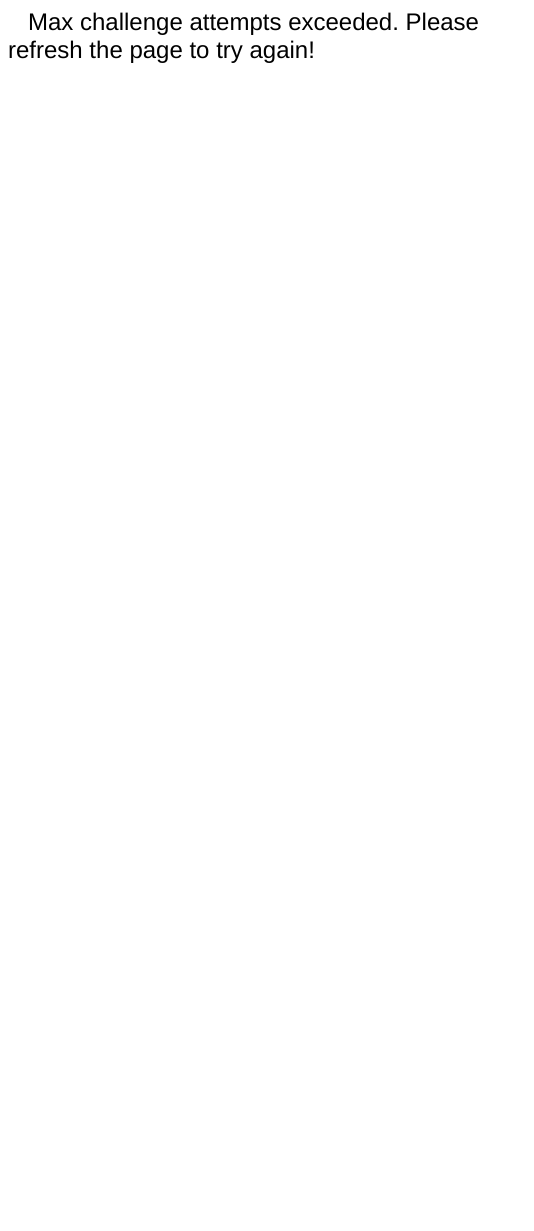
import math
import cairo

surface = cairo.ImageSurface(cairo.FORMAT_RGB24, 534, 1231)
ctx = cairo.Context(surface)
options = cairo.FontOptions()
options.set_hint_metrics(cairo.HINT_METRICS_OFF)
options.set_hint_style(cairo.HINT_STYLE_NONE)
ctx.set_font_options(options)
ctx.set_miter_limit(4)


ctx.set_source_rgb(1, 1, 1)
ctx.paint()
ctx.select_font_face("Liberation Sans")
ctx.set_font_size(24)
ctx.set_source_rgb(0, 0, 0)
ctx.move_to(28, 30)
ctx.show_text("Max challenge attempts exceeded. Please")
ctx.move_to(8, 58)
ctx.show_text("refresh the page to try again!")
surface.write_to_png("page.png")
